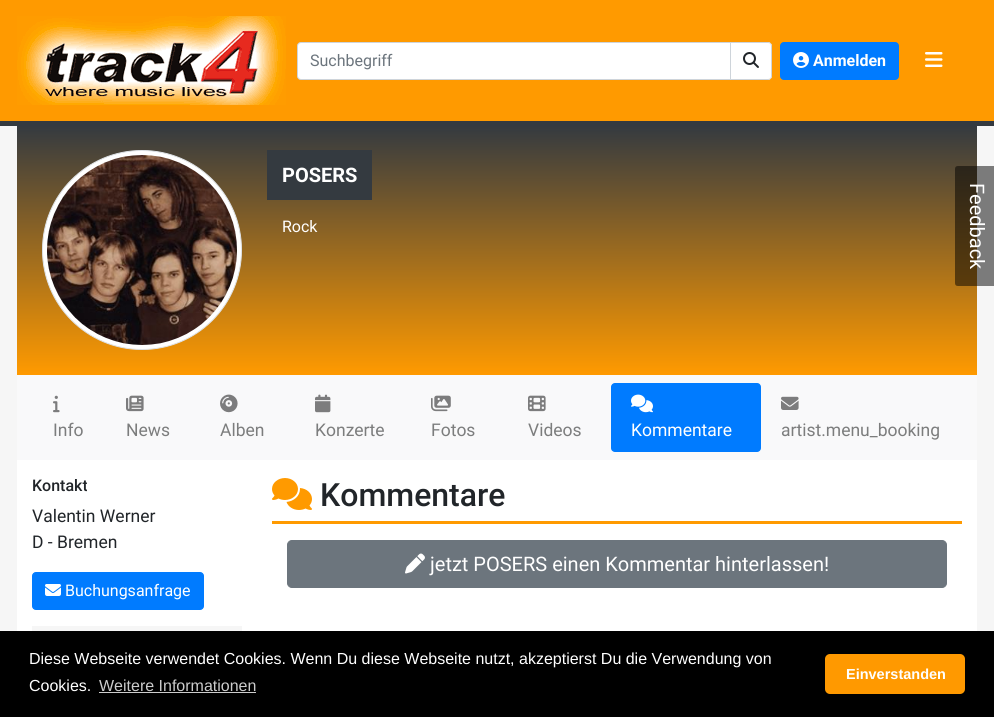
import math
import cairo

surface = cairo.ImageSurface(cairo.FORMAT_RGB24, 994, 717)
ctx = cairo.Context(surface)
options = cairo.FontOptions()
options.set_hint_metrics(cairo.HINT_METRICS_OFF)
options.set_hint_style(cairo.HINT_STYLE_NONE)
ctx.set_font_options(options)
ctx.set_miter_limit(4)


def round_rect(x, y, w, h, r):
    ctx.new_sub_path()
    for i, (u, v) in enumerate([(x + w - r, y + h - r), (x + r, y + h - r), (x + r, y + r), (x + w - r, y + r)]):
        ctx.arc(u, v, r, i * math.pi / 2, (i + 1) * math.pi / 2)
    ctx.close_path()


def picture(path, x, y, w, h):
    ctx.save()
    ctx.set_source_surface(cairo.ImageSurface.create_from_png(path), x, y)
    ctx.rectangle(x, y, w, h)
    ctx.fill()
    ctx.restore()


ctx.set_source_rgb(0.961, 0.961, 0.961)
ctx.paint()
ctx.set_source_rgb(1, 0.604, 0)
ctx.rectangle(0, 0, 994, 121)
ctx.fill()
ctx.set_source_rgb(0.204, 0.227, 0.251)
ctx.rectangle(0, 121, 994, 5)
ctx.fill()
picture("img1.png", 17, 16, 269, 89)
ctx.set_source_rgb(1, 1, 1)
ctx.new_path()
ctx.move_to(301, 42.5)
ctx.line_to(730.5, 42.5)
ctx.line_to(730.5, 79.5)
ctx.line_to(301, 79.5)
ctx.curve_to(299, 79.5, 297.5, 78, 297.5, 76)
ctx.line_to(297.5, 46)
ctx.curve_to(297.5, 44, 299, 42.5, 301, 42.5)
ctx.close_path()
ctx.fill_preserve()
ctx.set_source_rgb(0.808, 0.831, 0.855)
ctx.set_line_width(1)
ctx.stroke()
ctx.select_font_face("Roboto")
ctx.set_font_size(16)
ctx.set_source_rgb(0.424, 0.459, 0.49)
ctx.move_to(310, 66)
ctx.show_text("Suchbegriff")
ctx.set_source_rgb(1, 1, 1)
ctx.new_path()
ctx.move_to(731, 42)
ctx.line_to(768, 42)
ctx.curve_to(770, 42, 772, 44, 772, 46)
ctx.line_to(772, 76)
ctx.curve_to(772, 78, 770, 80, 768, 80)
ctx.line_to(731, 80)
ctx.close_path()
ctx.fill()
ctx.set_source_rgb(0.808, 0.831, 0.855)
ctx.set_fill_rule(cairo.FILL_RULE_EVEN_ODD)
ctx.new_path()
ctx.move_to(731, 42)
ctx.line_to(768, 42)
ctx.curve_to(770, 42, 772, 44, 772, 46)
ctx.line_to(772, 76)
ctx.curve_to(772, 78, 770, 80, 768, 80)
ctx.line_to(731, 80)
ctx.close_path()
ctx.move_to(731, 43)
ctx.line_to(768, 43)
ctx.curve_to(770, 43, 771, 44, 771, 46)
ctx.line_to(771, 76)
ctx.curve_to(771, 78, 770, 79, 768, 79)
ctx.line_to(731, 79)
ctx.close_path()
ctx.fill()
picture("img2.png", 743, 52, 16, 16)
ctx.set_source_rgb(0, 0.482, 1)
round_rect(780.5, 42.5, 118, 37, 3.5)
ctx.fill_preserve()
ctx.stroke()
picture("img3.png", 793, 52, 16, 16)
ctx.select_font_face("Roboto", cairo.FONT_SLANT_NORMAL, cairo.FONT_WEIGHT_BOLD)
ctx.set_source_rgb(1, 1, 1)
ctx.move_to(813, 66)
ctx.show_text("Anmelden")
picture("img4.png", 925, 52, 18, 15)
ctx.rectangle(17, 460, 960, 171)
ctx.fill()
gradient = cairo.LinearGradient(497, 375, 497, 125)
gradient.add_color_stop_rgba(0, 1, 0.604, 0, 1)
gradient.add_color_stop_rgba(1, 0.204, 0.227, 0.251, 1)
ctx.set_source(gradient)
ctx.rectangle(17, 126, 960, 249)
ctx.fill()
ctx.set_source_rgb(1, 1, 1)
ctx.arc(142, 250, 99.5, 0, 2 * math.pi)
ctx.fill_preserve()
ctx.set_source_rgb(0.871, 0.886, 0.902)
ctx.stroke()
picture("img5.png", 47, 155, 190, 190)
ctx.set_source_rgb(0.204, 0.227, 0.251)
ctx.rectangle(267, 150, 105, 50)
ctx.fill()
ctx.set_font_size(20)
ctx.set_source_rgb(1, 1, 1)
ctx.move_to(282, 182)
ctx.show_text("POSERS")
ctx.select_font_face("Roboto")
ctx.set_font_size(16)
ctx.move_to(282, 232)
ctx.show_text("Rock")
ctx.set_source_rgb(0.973, 0.976, 0.98)
ctx.rectangle(17, 375, 960, 85)
ctx.fill()
picture("img6.png", 53, 395, 7, 18)
ctx.set_font_size(17.5)
ctx.set_source_rgb(0.486, 0.49, 0.49)
ctx.move_to(53, 436)
ctx.show_text("Info")
picture("img7.png", 126, 395, 18, 17)
ctx.move_to(126, 436)
ctx.show_text("News")
picture("img8.png", 220, 394, 18, 19)
ctx.move_to(220, 436)
ctx.show_text("Alben")
picture("img9.png", 315, 394, 16, 19)
ctx.move_to(315, 436)
ctx.show_text("Konzerte")
picture("img10.png", 431, 395, 20, 17)
ctx.move_to(431, 436)
ctx.show_text("Fotos")
picture("img11.png", 528, 395, 18, 17)
ctx.move_to(528, 436)
ctx.show_text("Videos")
ctx.set_source_rgb(0, 0.482, 1)
round_rect(611, 383, 150, 69, 4)
ctx.fill()
picture("img12.png", 631, 394, 22, 19)
ctx.set_source_rgb(1, 1, 1)
ctx.move_to(631, 436)
ctx.show_text("Kommentare")
picture("img13.png", 781, 396, 18, 14)
ctx.set_source_rgb(0.486, 0.49, 0.49)
ctx.move_to(781, 436)
ctx.show_text("artist.menu_booking")
ctx.select_font_face("Roboto Medium")
ctx.set_font_size(16)
ctx.set_source_rgb(0.129, 0.145, 0.161)
ctx.move_to(32, 491)
ctx.show_text("Kontakt")
ctx.select_font_face("Roboto")
ctx.set_font_size(17.5)
ctx.move_to(32, 522)
ctx.show_text("Valentin Werner")
ctx.move_to(32, 548)
ctx.show_text("D - Bremen")
ctx.set_source_rgb(0, 0.482, 1)
round_rect(32.5, 572.5, 171, 37, 3.5)
ctx.fill_preserve()
ctx.stroke()
picture("img14.png", 45, 584, 16, 12)
ctx.set_font_size(16)
ctx.set_source_rgb(1, 1, 1)
ctx.move_to(65, 596)
ctx.show_text("Buchungsanfrage")
ctx.set_source_rgb(0.961, 0.961, 0.961)
ctx.rectangle(32, 626, 210, 5)
ctx.fill()
ctx.set_source_rgb(1, 0.604, 0)
ctx.rectangle(272, 521, 690, 3)
ctx.fill()
picture("img15.png", 272, 478, 40, 32)
ctx.select_font_face("Roboto Medium")
ctx.set_font_size(32)
ctx.set_source_rgb(0.129, 0.145, 0.161)
ctx.move_to(320, 506)
ctx.show_text("Kommentare")
ctx.set_source_rgb(0.424, 0.459, 0.49)
round_rect(287.5, 540.5, 659, 47, 4.5)
ctx.fill_preserve()
ctx.stroke()
picture("img16.png", 405, 553, 20, 21)
ctx.select_font_face("Roboto")
ctx.set_font_size(20)
ctx.set_source_rgb(1, 1, 1)
ctx.move_to(430, 571)
ctx.show_text("jetzt POSERS einen Kommentar hinterlassen!")
ctx.set_source_rgba(0, 0, 0, 0.5)
ctx.set_fill_rule(cairo.FILL_RULE_WINDING)
ctx.new_path()
ctx.move_to(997, 169)
ctx.line_to(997, 283)
ctx.curve_to(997, 285, 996, 286, 994, 286)
ctx.line_to(958, 286)
ctx.curve_to(956, 286, 955, 285, 955, 283)
ctx.line_to(955, 169)
ctx.curve_to(955, 167, 956, 166, 958, 166)
ctx.line_to(994, 166)
ctx.curve_to(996, 166, 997, 167, 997, 169)
ctx.close_path()
ctx.fill()
ctx.set_source_rgb(1, 1, 1)
ctx.save()
ctx.translate(970, 183)
ctx.rotate(90 * math.pi / 180)
ctx.move_to(0, 0)
ctx.show_text("Feedback")
ctx.restore()
ctx.set_source_rgb(0, 0, 0)
ctx.rectangle(0, 631, 994, 86)
ctx.fill()
ctx.select_font_face("Liberation Sans")
ctx.set_font_size(16)
ctx.set_source_rgb(1, 1, 1)
ctx.move_to(29, 664)
ctx.show_text("Diese Webseite verwendet Cookies. Wenn Du diese Webseite nutzt, akzeptierst Du die Verwendung von")
ctx.move_to(29, 691)
ctx.show_text("Cookies.")
ctx.set_source_rgb(0.8, 0.8, 0.8)
ctx.move_to(99, 691)
ctx.show_text("Weitere Informationen")
ctx.rectangle(99, 692, 157, 1)
ctx.fill()
ctx.set_source_rgb(1, 0.6, 0)
round_rect(825, 654, 140, 40, 5)
ctx.fill()
ctx.select_font_face("Liberation Sans", cairo.FONT_SLANT_NORMAL, cairo.FONT_WEIGHT_BOLD)
ctx.set_font_size(14.5)
ctx.set_source_rgb(1, 1, 1)
ctx.move_to(846, 679)
ctx.show_text("Einverstanden")
surface.write_to_png("page.png")
